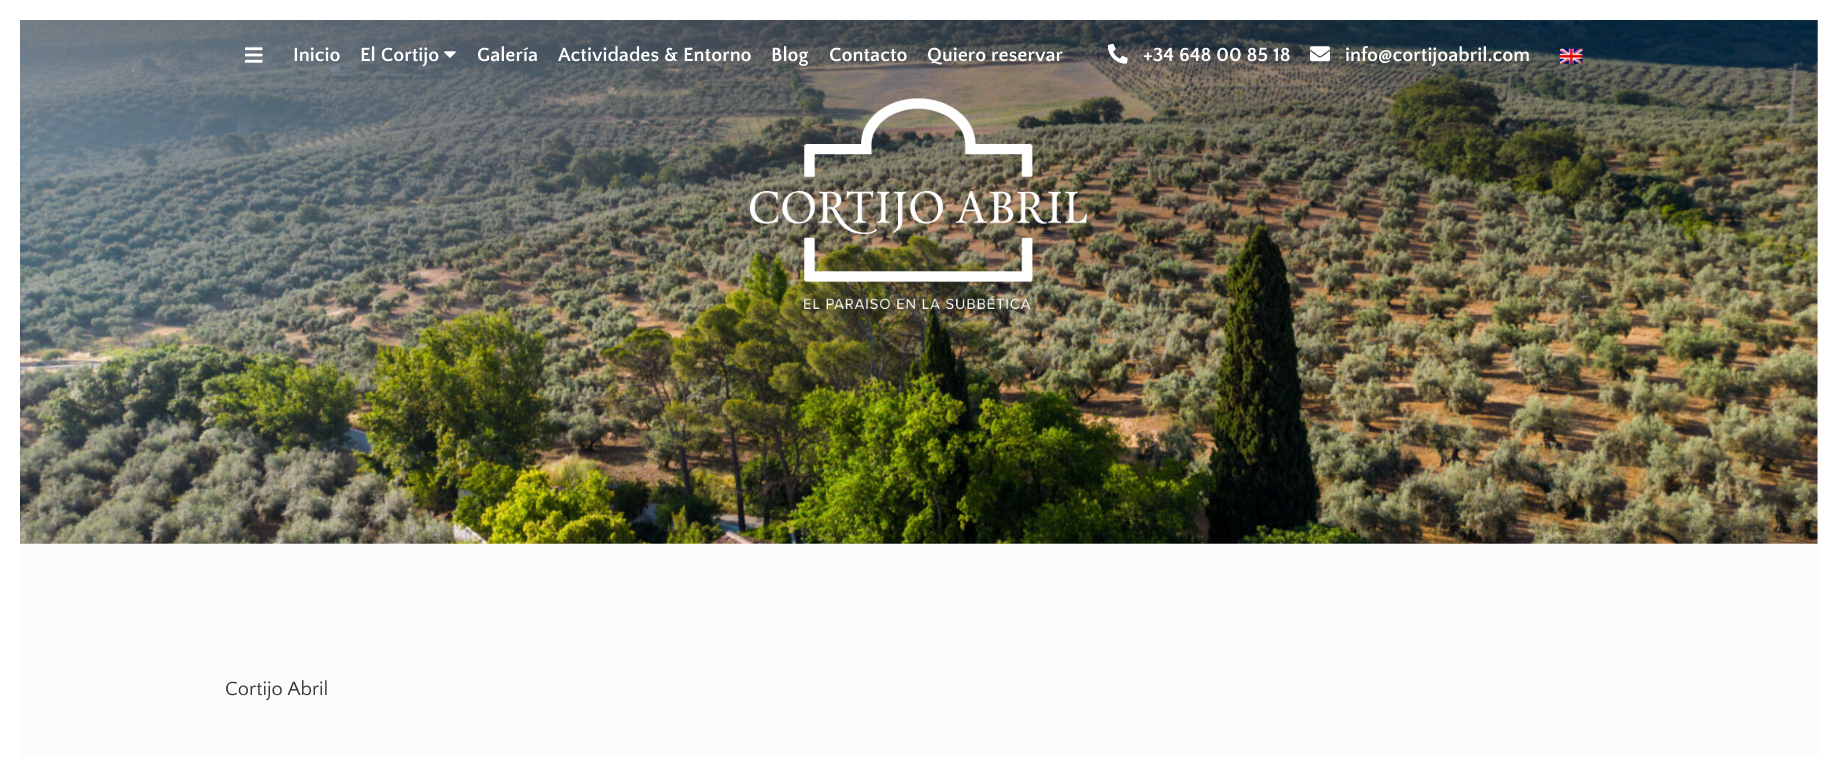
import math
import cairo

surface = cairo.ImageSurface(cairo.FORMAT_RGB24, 1837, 758)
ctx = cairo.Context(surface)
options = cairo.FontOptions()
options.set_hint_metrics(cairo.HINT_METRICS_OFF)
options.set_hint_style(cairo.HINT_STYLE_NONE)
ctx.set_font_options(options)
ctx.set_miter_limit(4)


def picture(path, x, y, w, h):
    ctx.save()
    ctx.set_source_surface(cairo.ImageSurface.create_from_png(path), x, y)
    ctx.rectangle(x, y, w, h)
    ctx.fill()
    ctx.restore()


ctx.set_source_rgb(0.988, 0.988, 0.988)
ctx.paint()
ctx.rectangle(10, 10, 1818, 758)
ctx.set_source_rgb(1, 1, 1)
ctx.set_line_width(20)
ctx.stroke()
picture("img6.png", 20, 20, 1798, 524)
gradient = cairo.LinearGradient(919, 20, 919, 320)
gradient.add_color_stop_rgba(0, 0, 0, 0, 0.4)
gradient.add_color_stop_rgba(1, 0, 0, 0, 0)
ctx.set_source(gradient)
ctx.rectangle(20, 20, 1798, 284)
ctx.fill()
picture("img1.png", 245, 47, 18, 16)
ctx.select_font_face("Quattrocento Sans", cairo.FONT_SLANT_NORMAL, cairo.FONT_WEIGHT_BOLD)
ctx.set_font_size(20)
ctx.set_source_rgb(1, 1, 1)
ctx.move_to(293, 61)
ctx.show_text("Inicio")
ctx.move_to(360, 61)
ctx.show_text("El Cortijo")
picture("img2.png", 444, 51, 12, 7)
ctx.move_to(477, 61)
ctx.show_text("Galería")
ctx.move_to(558, 61)
ctx.show_text("Actividades & Entorno")
ctx.move_to(771, 61)
ctx.show_text("Blog")
ctx.move_to(829, 61)
ctx.show_text("Contacto")
ctx.move_to(927, 61)
ctx.show_text("Quiero reservar")
picture("img3.png", 1107, 43, 21, 21)
ctx.move_to(1143, 61)
ctx.show_text("+34 648 00 85 18")
picture("img4.png", 1310, 46, 20, 16)
ctx.move_to(1345, 61)
ctx.show_text("info@cortijoabril.com")
picture("img5.png", 1560, 48, 23, 16)
picture("img7.png", 750, 98, 338, 212)
ctx.select_font_face("Quattrocento Sans")
ctx.set_source_rgb(0.2, 0.2, 0.2)
ctx.move_to(225, 695)
ctx.show_text("Cortijo Abril")
surface.write_to_png("page.png")
